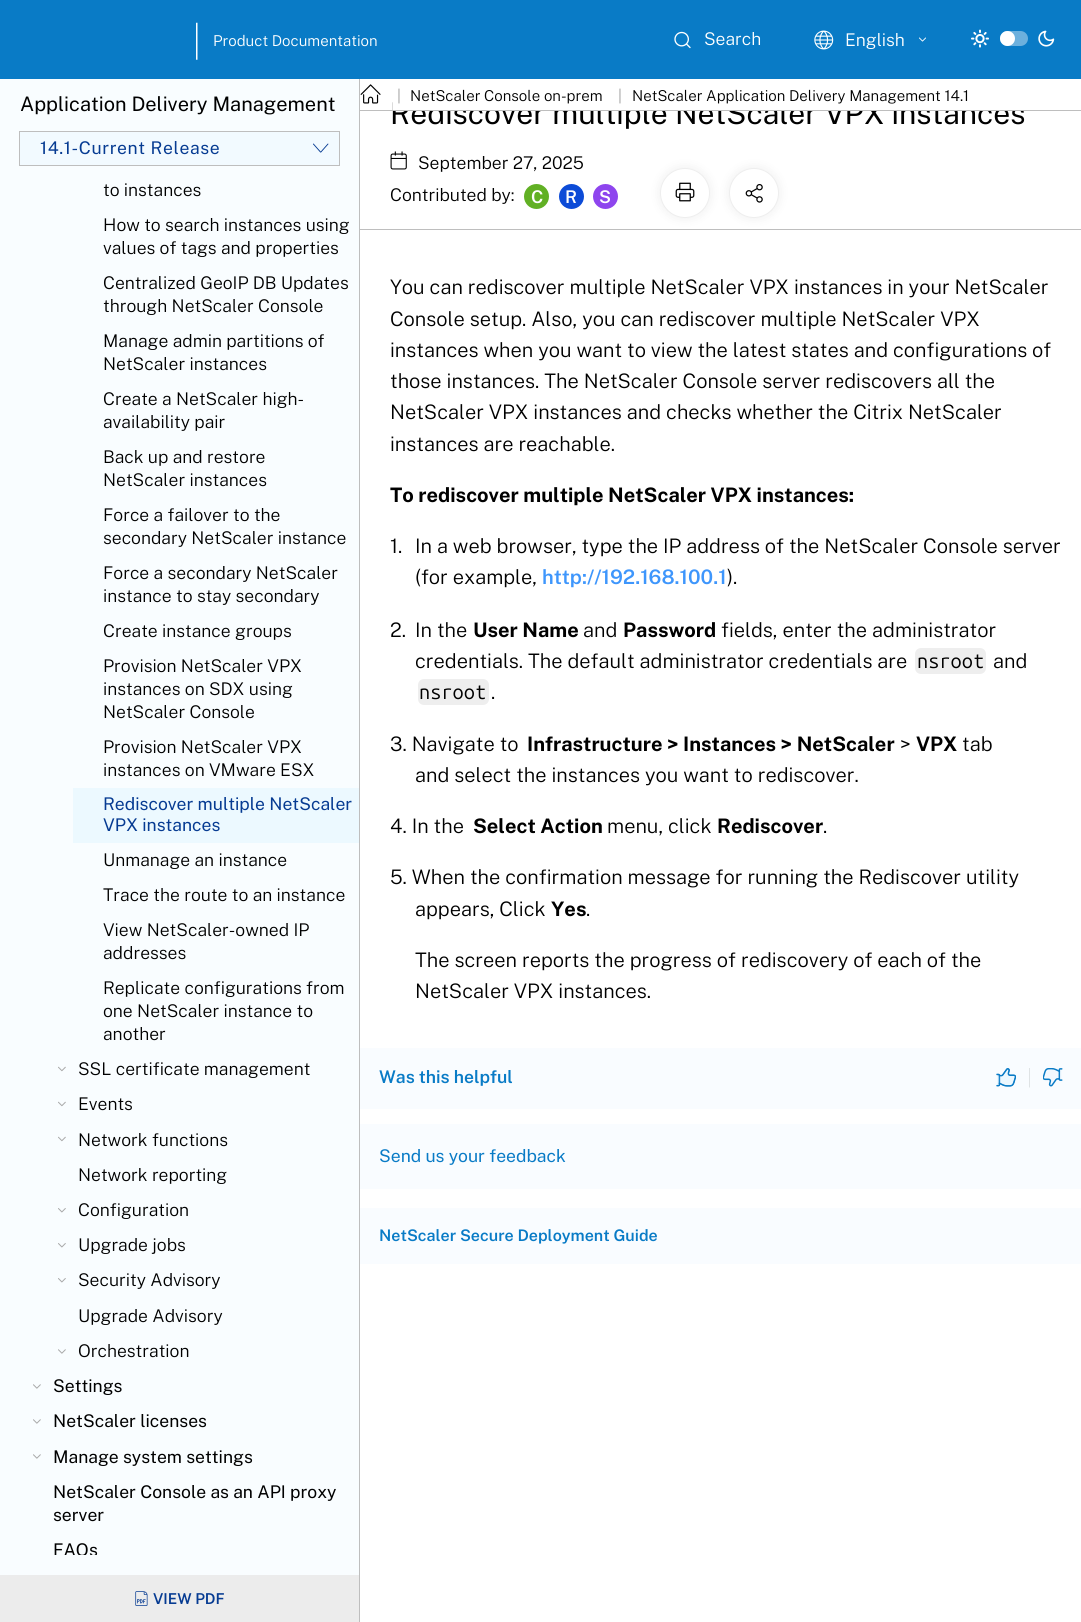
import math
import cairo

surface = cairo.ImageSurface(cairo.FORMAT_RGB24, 1081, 1622)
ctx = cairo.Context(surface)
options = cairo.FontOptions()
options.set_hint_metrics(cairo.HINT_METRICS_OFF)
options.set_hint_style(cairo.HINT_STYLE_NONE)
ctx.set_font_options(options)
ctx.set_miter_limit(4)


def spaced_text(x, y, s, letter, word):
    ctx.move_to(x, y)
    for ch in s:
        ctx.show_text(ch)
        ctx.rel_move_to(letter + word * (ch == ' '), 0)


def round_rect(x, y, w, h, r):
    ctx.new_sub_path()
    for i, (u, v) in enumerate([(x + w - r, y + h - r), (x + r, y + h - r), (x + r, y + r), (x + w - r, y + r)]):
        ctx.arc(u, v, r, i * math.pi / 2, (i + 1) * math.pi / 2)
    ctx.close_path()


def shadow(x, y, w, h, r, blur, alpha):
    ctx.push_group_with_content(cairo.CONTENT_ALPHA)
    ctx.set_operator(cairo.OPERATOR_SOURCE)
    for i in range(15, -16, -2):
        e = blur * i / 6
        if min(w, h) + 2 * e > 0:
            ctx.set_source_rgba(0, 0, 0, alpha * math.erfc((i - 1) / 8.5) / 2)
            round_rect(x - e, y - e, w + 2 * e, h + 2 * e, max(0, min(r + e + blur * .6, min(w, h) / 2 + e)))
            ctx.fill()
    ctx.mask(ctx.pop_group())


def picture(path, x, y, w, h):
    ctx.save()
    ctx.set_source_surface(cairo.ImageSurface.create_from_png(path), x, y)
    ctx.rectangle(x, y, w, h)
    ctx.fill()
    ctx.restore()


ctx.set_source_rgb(1, 1, 1)
ctx.paint()
ctx.set_source_rgb(0.039, 0.482, 0.776)
ctx.rectangle(0, 0, 1081, 79)
ctx.fill()
ctx.set_source_rgb(1, 1, 1)
ctx.new_path()
ctx.move_to(197, 22.5)
ctx.line_to(196, 23)
ctx.line_to(196, 59.5)
ctx.line_to(197, 60)
ctx.line_to(197.5, 59.5)
ctx.line_to(197.5, 23)
ctx.close_path()
ctx.fill()
ctx.select_font_face("Public Sans Light")
ctx.set_font_size(15)
ctx.move_to(213, 46)
ctx.show_text("Product Documentation")
picture("img1.png", 674, 31, 17, 18)
ctx.set_font_size(17.5)
ctx.move_to(704, 45)
ctx.show_text("Search")
picture("img2.png", 814, 30, 20, 20)
ctx.move_to(845, 46)
ctx.show_text("English")
picture("img3.png", 919, 37, 7, 5)
picture("img4.png", 971, 29, 18, 19)
ctx.set_source_rgb(0.424, 0.69, 0.867)
round_rect(1000, 31, 28, 15, 7.5)
ctx.fill()
ctx.set_source_rgb(1, 1, 1)
ctx.arc(1007.5, 38.5, 7.5, 0, 2 * math.pi)
ctx.fill()
picture("img5.png", 1038, 30, 17, 17)
ctx.set_source_rgb(0.976, 0.992, 1)
ctx.rectangle(0, 79, 359, 1496)
ctx.fill()
ctx.set_source_rgb(0.745, 0.745, 0.745)
ctx.rectangle(359, 79, 1, 1543)
ctx.fill()
ctx.select_font_face("Public Sans")
ctx.set_font_size(20)
ctx.set_source_rgb(0, 0, 0)
ctx.move_to(20, 111)
ctx.show_text("Application Delivery Management")
ctx.set_source_rgb(0.949, 0.98, 1)
ctx.rectangle(19.5, 131.5, 320, 34)
ctx.fill_preserve()
ctx.set_source_rgb(0.745, 0.745, 0.745)
ctx.set_line_width(1)
ctx.stroke()
ctx.set_font_size(17.5)
ctx.set_source_rgb(0.024, 0.231, 0.573)
spaced_text(40, 154, "14.1-Current Release", 0.6, 0)
picture("img6.png", 313, 143, 16, 10)
ctx.select_font_face("Public Sans Light")
ctx.set_source_rgb(0, 0, 0)
ctx.move_to(103, 196)
ctx.show_text("to instances")
ctx.move_to(103, 231)
ctx.show_text("How to search instances using")
ctx.move_to(103, 254)
ctx.show_text("values of tags and properties")
ctx.move_to(103, 289)
ctx.show_text("Centralized GeoIP DB Updates")
ctx.move_to(103, 312)
ctx.show_text("through NetScaler Console")
ctx.move_to(103, 347)
ctx.show_text("Manage admin partitions of")
ctx.move_to(103, 370)
ctx.show_text("NetScaler instances")
ctx.move_to(103, 405)
ctx.show_text("Create a NetScaler high-")
ctx.move_to(103, 428)
ctx.show_text("availability pair")
ctx.move_to(103, 463)
ctx.show_text("Back up and restore")
ctx.move_to(103, 486)
ctx.show_text("NetScaler instances")
ctx.move_to(103, 521)
ctx.show_text("Force a failover to the")
ctx.move_to(103, 544)
ctx.show_text("secondary NetScaler instance")
ctx.move_to(103, 579)
ctx.show_text("Force a secondary NetScaler")
ctx.move_to(103, 602)
ctx.show_text("instance to stay secondary")
ctx.move_to(103, 637)
ctx.show_text("Create instance groups")
ctx.move_to(103, 672)
ctx.show_text("Provision NetScaler VPX")
ctx.move_to(103, 695)
ctx.show_text("instances on SDX using")
ctx.move_to(103, 718)
ctx.show_text("NetScaler Console")
ctx.move_to(103, 753)
ctx.show_text("Provision NetScaler VPX")
ctx.move_to(103, 776)
ctx.show_text("instances on VMware ESX")
ctx.set_source_rgb(0.925, 0.973, 1)
ctx.rectangle(73, 788, 286, 55)
ctx.fill()
ctx.select_font_face("Public Sans")
ctx.set_source_rgb(0.024, 0.231, 0.573)
ctx.move_to(103, 810)
ctx.show_text("Rediscover multiple NetScaler")
ctx.move_to(103, 831)
ctx.show_text("VPX instances")
ctx.select_font_face("Public Sans Light")
ctx.set_source_rgb(0, 0, 0)
ctx.move_to(103, 866)
ctx.show_text("Unmanage an instance")
ctx.move_to(103, 901)
ctx.show_text("Trace the route to an instance")
ctx.move_to(103, 936)
ctx.show_text("View NetScaler-owned IP")
ctx.move_to(103, 959)
ctx.show_text("addresses")
ctx.move_to(103, 994)
ctx.show_text("Replicate configurations from")
ctx.move_to(103, 1017)
ctx.show_text("one NetScaler instance to")
ctx.move_to(103, 1040)
ctx.show_text("another")
picture("img7.png", 58, 1066, 8, 6)
ctx.move_to(78, 1075)
ctx.show_text("SSL certificate management")
picture("img7.png", 58, 1101, 8, 6)
ctx.move_to(78, 1110)
ctx.show_text("Events")
picture("img7.png", 58, 1136, 8, 6)
ctx.move_to(78, 1146)
ctx.show_text("Network functions")
ctx.move_to(78, 1181)
ctx.show_text("Network reporting")
picture("img8.png", 58, 1208, 8, 5)
ctx.move_to(78, 1216)
ctx.show_text("Configuration")
picture("img8.png", 58, 1243, 8, 5)
ctx.move_to(78, 1251)
ctx.show_text("Upgrade jobs")
picture("img8.png", 58, 1278, 8, 5)
ctx.move_to(78, 1286)
ctx.show_text("Security Advisory")
ctx.move_to(78, 1322)
ctx.show_text("Upgrade Advisory")
picture("img9.png", 58, 1349, 8, 5)
ctx.move_to(78, 1357)
ctx.show_text("Orchestration")
picture("img9.png", 33, 1384, 8, 5)
ctx.select_font_face("Public Sans")
ctx.move_to(53, 1392)
ctx.show_text("Settings")
picture("img9.png", 33, 1419, 8, 5)
ctx.move_to(53, 1427)
ctx.show_text("NetScaler licenses")
picture("img9.png", 33, 1454, 8, 5)
ctx.move_to(53, 1463)
ctx.show_text("Manage system settings")
ctx.move_to(53, 1498)
ctx.show_text("NetScaler Console as an API proxy")
ctx.move_to(53, 1521)
ctx.show_text("server")
ctx.save()
ctx.rectangle(23, 173, 336, 1382)
ctx.clip()
ctx.move_to(53, 1556)
ctx.show_text("FAQs")
ctx.restore()
ctx.set_source_rgb(0.922, 0.922, 0.922)
ctx.rectangle(0, 1575, 359, 47)
ctx.fill()
picture("img10.png", 135, 1591, 13, 15)
ctx.select_font_face("Public Sans SemiBold")
ctx.set_font_size(15)
ctx.set_source_rgb(0.024, 0.231, 0.573)
ctx.move_to(153, 1604)
ctx.show_text("VIEW PDF")
ctx.select_font_face("Public Sans")
ctx.set_font_size(30)
ctx.set_source_rgb(0, 0, 0)
ctx.move_to(390, 124)
ctx.show_text("Rediscover multiple NetScaler VPX instances")
ctx.set_source_rgb(1, 1, 1)
ctx.rectangle(393, 101, 631, 9)
ctx.fill()
ctx.set_source_rgb(0.745, 0.745, 0.745)
ctx.rectangle(360, 110, 721, 1)
ctx.fill()
picture("img11.png", 360, 84, 21, 20)
ctx.select_font_face("Public Sans Light")
ctx.set_font_size(15)
ctx.set_source_rgb(0.6, 0.6, 0.6)
ctx.move_to(397, 101)
ctx.show_text("|")
ctx.set_source_rgb(0, 0, 0)
ctx.move_to(410, 101)
ctx.show_text("NetScaler Console on-prem")
ctx.set_source_rgb(0.6, 0.6, 0.6)
ctx.move_to(618, 101)
ctx.show_text("|")
ctx.set_source_rgb(0, 0, 0)
ctx.move_to(632, 101)
ctx.show_text("NetScaler Application Delivery Management 14.1")
ctx.set_source_rgb(0.745, 0.745, 0.745)
ctx.rectangle(360, 229, 721, 1)
ctx.fill()
picture("img12.png", 390, 151, 17, 19)
ctx.set_font_size(17.5)
ctx.set_source_rgb(0, 0, 0)
ctx.move_to(418, 169)
ctx.show_text("September 27, 2025")
ctx.move_to(390, 201)
ctx.show_text("Contributed by:")
ctx.set_source_rgb(0.38, 0.69, 0.141)
ctx.new_path()
ctx.arc(536.5, 196.5, 12.5, 0, 2 * math.pi)
ctx.fill()
ctx.select_font_face("Public Sans SemiBold")
ctx.set_source_rgb(1, 1, 1)
ctx.move_to(531, 203)
ctx.show_text("C")
ctx.set_source_rgb(0.047, 0.294, 0.843)
ctx.new_path()
ctx.arc(571.5, 196.5, 12.5, 0, 2 * math.pi)
ctx.fill()
ctx.set_source_rgb(1, 1, 1)
ctx.move_to(565, 203)
ctx.show_text("R")
ctx.set_source_rgb(0.557, 0.271, 0.933)
ctx.new_path()
ctx.arc(605.5, 196.5, 12.5, 0, 2 * math.pi)
ctx.fill()
ctx.set_source_rgb(1, 1, 1)
ctx.move_to(599, 203)
ctx.show_text("S")
ctx.set_source_rgb(0, 0, 0)
shadow(660, 168, 50, 50, 25, 6, 0.07)
ctx.set_source_rgb(1, 1, 1)
ctx.arc(685, 193, 25, 0, 2 * math.pi)
ctx.fill()
ctx.arc(685, 193, 24.5, 0, 2 * math.pi)
ctx.set_source_rgba(0, 0, 0, 0.07)
ctx.stroke()
picture("img13.png", 675, 182, 20, 20)
ctx.set_source_rgb(0, 0, 0)
shadow(729, 168, 50, 50, 25, 6, 0.07)
ctx.set_source_rgb(1, 1, 1)
ctx.arc(754, 193, 25, 0, 2 * math.pi)
ctx.fill()
ctx.arc(754, 193, 24.5, 0, 2 * math.pi)
ctx.set_source_rgba(0, 0, 0, 0.07)
ctx.stroke()
picture("img14.png", 745, 184, 18, 19)
ctx.select_font_face("Public Sans Light")
ctx.set_font_size(20)
ctx.set_source_rgb(0, 0, 0)
ctx.move_to(390, 294)
ctx.show_text("You can rediscover multiple NetScaler VPX instances in your NetScaler")
ctx.move_to(390, 326)
ctx.show_text("Console setup. Also, you can rediscover multiple NetScaler VPX")
ctx.move_to(390, 357)
ctx.show_text("instances when you want to view the latest states and configurations of")
ctx.move_to(390, 388)
ctx.show_text("those instances. The NetScaler Console server rediscovers all the")
ctx.move_to(390, 419)
ctx.show_text("NetScaler VPX instances and checks whether the Citrix NetScaler")
ctx.move_to(390, 451)
ctx.show_text("instances are reachable.")
ctx.select_font_face("Public Sans", cairo.FONT_SLANT_NORMAL, cairo.FONT_WEIGHT_BOLD)
ctx.move_to(390, 502)
ctx.show_text("To rediscover multiple NetScaler VPX instances:")
ctx.select_font_face("Public Sans Light")
ctx.move_to(390, 553)
ctx.show_text("1.")
ctx.move_to(415, 553)
ctx.show_text("In a web browser, type the IP address of the NetScaler Console server")
ctx.move_to(415, 584)
ctx.show_text("(for example,")
ctx.select_font_face("Public Sans SemiBold")
ctx.set_source_rgb(0.243, 0.588, 0.988)
ctx.move_to(542, 584)
ctx.show_text("http://192.168.100.1")
ctx.select_font_face("Public Sans Light")
ctx.set_source_rgb(0, 0, 0)
ctx.move_to(727, 584)
ctx.show_text(").")
ctx.move_to(390, 637)
ctx.show_text("2.")
ctx.move_to(415, 637)
ctx.show_text("In the")
ctx.select_font_face("Public Sans", cairo.FONT_SLANT_NORMAL, cairo.FONT_WEIGHT_BOLD)
ctx.move_to(473, 637)
ctx.show_text("User Name")
ctx.select_font_face("Public Sans Light")
ctx.move_to(583, 637)
ctx.show_text("and")
ctx.select_font_face("Public Sans", cairo.FONT_SLANT_NORMAL, cairo.FONT_WEIGHT_BOLD)
ctx.move_to(623, 637)
ctx.show_text("Password")
ctx.select_font_face("Public Sans Light")
ctx.move_to(721, 637)
ctx.show_text("fields, enter the administrator")
ctx.move_to(415, 668)
ctx.show_text("credentials. The default administrator credentials are")
ctx.set_source_rgb(0.933, 0.933, 0.933)
round_rect(915, 648, 71, 26, 6)
ctx.fill()
ctx.select_font_face("Ubuntu Mono")
ctx.set_source_rgb(0, 0, 0)
ctx.move_to(917, 668)
ctx.show_text("nsroot")
ctx.select_font_face("Public Sans Light")
ctx.move_to(993, 668)
ctx.show_text("and")
ctx.set_source_rgb(0.933, 0.933, 0.933)
round_rect(418, 679, 71, 26, 6)
ctx.fill()
ctx.select_font_face("Ubuntu Mono")
ctx.set_source_rgb(0, 0, 0)
ctx.move_to(419, 699)
ctx.show_text("nsroot")
ctx.select_font_face("Public Sans Light")
ctx.move_to(491, 699)
ctx.show_text(".")
ctx.move_to(390, 751)
ctx.show_text("3. Navigate to")
ctx.select_font_face("Public Sans", cairo.FONT_SLANT_NORMAL, cairo.FONT_WEIGHT_BOLD)
ctx.move_to(527, 751)
ctx.show_text("Infrastructure > Instances > NetScaler")
ctx.select_font_face("Public Sans Light")
ctx.move_to(900, 751)
ctx.show_text(">")
ctx.select_font_face("Public Sans", cairo.FONT_SLANT_NORMAL, cairo.FONT_WEIGHT_BOLD)
ctx.move_to(916, 751)
ctx.show_text("VPX")
ctx.select_font_face("Public Sans Light")
ctx.move_to(962, 751)
ctx.show_text("tab")
ctx.move_to(415, 782)
ctx.show_text("and select the instances you want to rediscover.")
ctx.move_to(390, 833)
ctx.show_text("4. In the")
ctx.select_font_face("Public Sans", cairo.FONT_SLANT_NORMAL, cairo.FONT_WEIGHT_BOLD)
ctx.move_to(473, 833)
ctx.show_text("Select Action")
ctx.select_font_face("Public Sans Light")
ctx.move_to(607, 833)
ctx.show_text("menu, click")
ctx.select_font_face("Public Sans", cairo.FONT_SLANT_NORMAL, cairo.FONT_WEIGHT_BOLD)
ctx.move_to(717, 833)
ctx.show_text("Rediscover")
ctx.select_font_face("Public Sans Light")
ctx.move_to(823, 833)
ctx.show_text(".")
ctx.move_to(390, 884)
ctx.show_text("5. When the confirmation message for running the Rediscover utility")
ctx.move_to(415, 916)
ctx.show_text("appears, Click")
ctx.select_font_face("Public Sans", cairo.FONT_SLANT_NORMAL, cairo.FONT_WEIGHT_BOLD)
ctx.move_to(551, 916)
ctx.show_text("Yes")
ctx.select_font_face("Public Sans Light")
ctx.move_to(586, 916)
ctx.show_text(".")
ctx.move_to(415, 967)
ctx.show_text("The screen reports the progress of rediscovery of each of the")
ctx.move_to(415, 998)
ctx.show_text("NetScaler VPX instances.")
ctx.set_source_rgb(0.973, 0.988, 1)
ctx.rectangle(360, 1048, 721, 61)
ctx.fill()
ctx.select_font_face("Public Sans SemiBold")
ctx.set_font_size(17.5)
ctx.set_source_rgb(0.039, 0.482, 0.776)
ctx.move_to(379, 1083)
ctx.show_text("Was this helpful")
picture("img15.png", 996, 1068, 20, 19)
ctx.save()
ctx.rectangle(1029, 1068, 1, 20)
ctx.clip()
ctx.new_path()
ctx.move_to(1030, 1067.5)
ctx.line_to(1030, 1087.5)
ctx.set_source_rgb(0.776, 0.792, 0.8)
ctx.stroke()
ctx.restore()
picture("img16.png", 1043, 1068, 20, 19)
ctx.set_source_rgb(0.973, 0.988, 1)
ctx.rectangle(360, 1124, 721, 65)
ctx.fill()
ctx.select_font_face("Public Sans")
ctx.set_source_rgb(0.039, 0.482, 0.776)
ctx.move_to(379, 1162)
ctx.show_text("Send us your feedback")
ctx.set_source_rgb(0.973, 0.988, 1)
ctx.rectangle(360, 1208, 721, 56)
ctx.fill()
ctx.select_font_face("Public Sans SemiBold")
ctx.set_font_size(16)
ctx.set_source_rgb(0.039, 0.482, 0.776)
ctx.move_to(379, 1241)
ctx.show_text("NetScaler Secure Deployment Guide")
surface.write_to_png("page.png")
